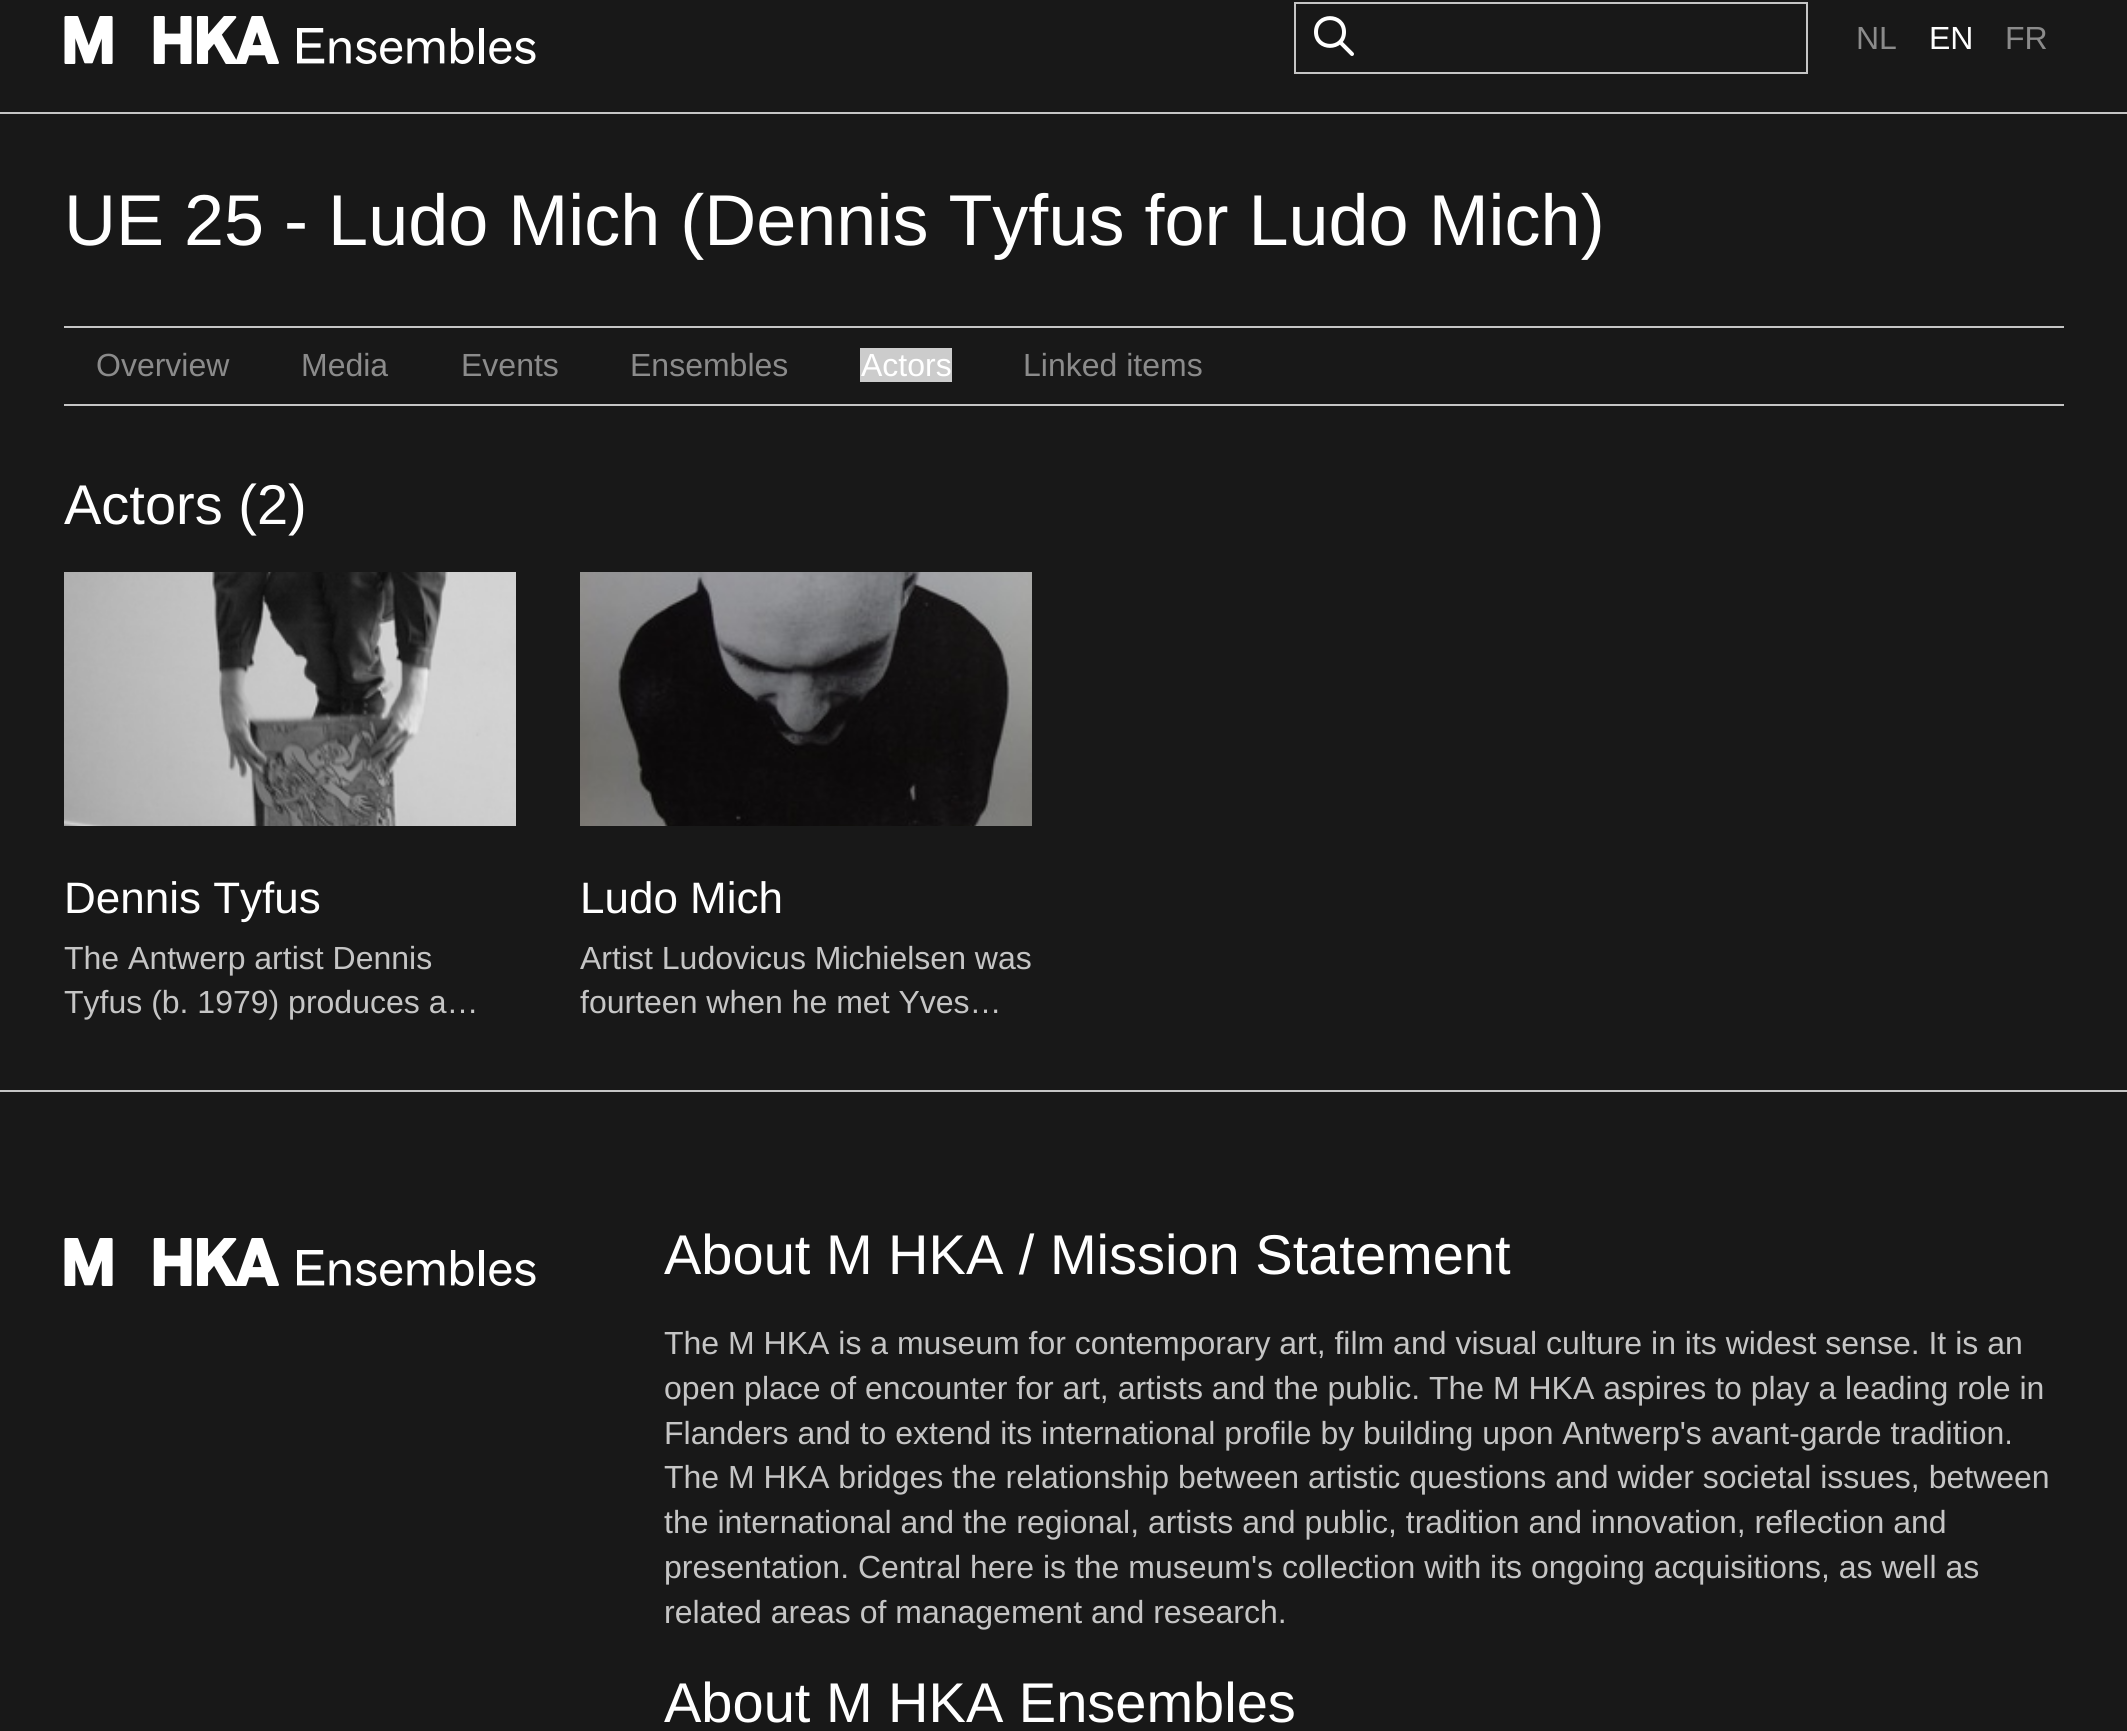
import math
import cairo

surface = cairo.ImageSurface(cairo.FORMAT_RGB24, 2127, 1731)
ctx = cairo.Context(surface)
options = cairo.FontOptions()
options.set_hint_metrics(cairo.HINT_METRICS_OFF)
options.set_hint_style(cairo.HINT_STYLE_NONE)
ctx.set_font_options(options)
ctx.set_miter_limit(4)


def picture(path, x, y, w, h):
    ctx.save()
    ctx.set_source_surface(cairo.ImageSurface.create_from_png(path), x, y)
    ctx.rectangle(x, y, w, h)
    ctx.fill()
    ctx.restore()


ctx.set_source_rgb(0.094, 0.094, 0.094)
ctx.paint()
ctx.set_source_rgb(0.773, 0.773, 0.773)
ctx.rectangle(0, 112, 2127, 2)
ctx.fill()
picture("img1.png", 64, 16, 472, 48)
ctx.rectangle(1295, 3, 512, 70)
ctx.stroke()
ctx.new_path()
ctx.move_to(1344, 32)
ctx.curve_to(1344, 50.5, 1316, 50.5, 1316, 32)
ctx.curve_to(1316, 13.5, 1344, 13.5, 1344, 32)
ctx.close_path()
ctx.move_to(1352, 54)
ctx.line_to(1340, 42)
ctx.set_source_rgb(1, 1, 1)
ctx.set_line_width(4)
ctx.set_line_cap(cairo.LINE_CAP_ROUND)
ctx.set_line_join(cairo.LINE_JOIN_ROUND)
ctx.stroke()
ctx.select_font_face("Liberation Sans")
ctx.set_font_size(32)
ctx.set_source_rgb(0.545, 0.545, 0.545)
ctx.move_to(1856, 49)
ctx.show_text("NL")
ctx.set_source_rgb(1, 1, 1)
ctx.move_to(1929, 49)
ctx.show_text("EN")
ctx.set_source_rgb(0.545, 0.545, 0.545)
ctx.move_to(2005, 49)
ctx.show_text("FR")
ctx.set_font_size(72)
ctx.set_source_rgb(1, 1, 1)
ctx.move_to(64, 245)
ctx.show_text("UE 25 - Ludo Mich (Dennis Tyfus for Ludo Mich)")
ctx.set_source_rgb(0.773, 0.773, 0.773)
ctx.rectangle(64, 326, 2000, 2)
ctx.fill()
ctx.rectangle(64, 404, 2000, 2)
ctx.fill()
ctx.set_font_size(32)
ctx.set_source_rgb(0.545, 0.545, 0.545)
ctx.move_to(96, 376)
ctx.show_text("Overview")
ctx.move_to(301, 376)
ctx.show_text("Media")
ctx.move_to(461, 376)
ctx.show_text("Events")
ctx.move_to(630, 376)
ctx.show_text("Ensembles")
ctx.set_source_rgb(0.8, 0.8, 0.8)
ctx.rectangle(860, 348, 92, 34)
ctx.fill()
ctx.set_source_rgb(1, 1, 1)
ctx.move_to(861, 376)
ctx.show_text("Actors")
ctx.set_source_rgb(0.545, 0.545, 0.545)
ctx.move_to(1023, 376)
ctx.show_text("Linked items")
ctx.set_font_size(56)
ctx.set_source_rgb(1, 1, 1)
ctx.move_to(64, 524)
ctx.show_text("Actors (2)")
picture("img2.png", 64, 572, 452, 254)
ctx.set_font_size(44)
ctx.move_to(64, 913)
ctx.show_text("Dennis Tyfus")
ctx.set_font_size(32)
ctx.set_source_rgb(0.773, 0.773, 0.773)
ctx.move_to(64, 969)
ctx.show_text("The Antwerp artist Dennis")
ctx.move_to(64, 1013)
ctx.show_text("Tyfus (b. 1979) produces a…")
picture("img3.png", 580, 572, 452, 254)
ctx.set_font_size(44)
ctx.set_source_rgb(1, 1, 1)
ctx.move_to(580, 913)
ctx.show_text("Ludo Mich")
ctx.set_font_size(32)
ctx.set_source_rgb(0.773, 0.773, 0.773)
ctx.move_to(580, 969)
ctx.show_text("Artist Ludovicus Michielsen was")
ctx.move_to(580, 1013)
ctx.show_text("fourteen when he met Yves…")
ctx.rectangle(0, 1090, 2127, 2)
ctx.fill()
picture("img1.png", 64, 1238, 472, 48)
ctx.set_font_size(56)
ctx.set_source_rgb(1, 1, 1)
ctx.move_to(664, 1274)
ctx.show_text("About M HKA / Mission Statement")
ctx.set_font_size(32)
ctx.set_source_rgb(0.773, 0.773, 0.773)
ctx.move_to(664, 1354)
ctx.show_text("The M HKA is a museum for contemporary art, film and visual culture in its widest sense. It is an")
ctx.move_to(664, 1399)
ctx.show_text("open place of encounter for art, artists and the public. The M HKA aspires to play a leading role in")
ctx.move_to(664, 1444)
ctx.show_text("Flanders and to extend its international profile by building upon Antwerp's avant-garde tradition.")
ctx.move_to(664, 1488)
ctx.show_text("The M HKA bridges the relationship between artistic questions and wider societal issues, between")
ctx.move_to(664, 1533)
ctx.show_text("the international and the regional, artists and public, tradition and innovation, reflection and")
ctx.move_to(664, 1578)
ctx.show_text("presentation. Central here is the museum's collection with its ongoing acquisitions, as well as")
ctx.move_to(664, 1623)
ctx.show_text("related areas of management and research.")
ctx.set_font_size(56)
ctx.set_source_rgb(1, 1, 1)
ctx.move_to(664, 1722)
ctx.show_text("About M HKA Ensembles")
surface.write_to_png("page.png")
